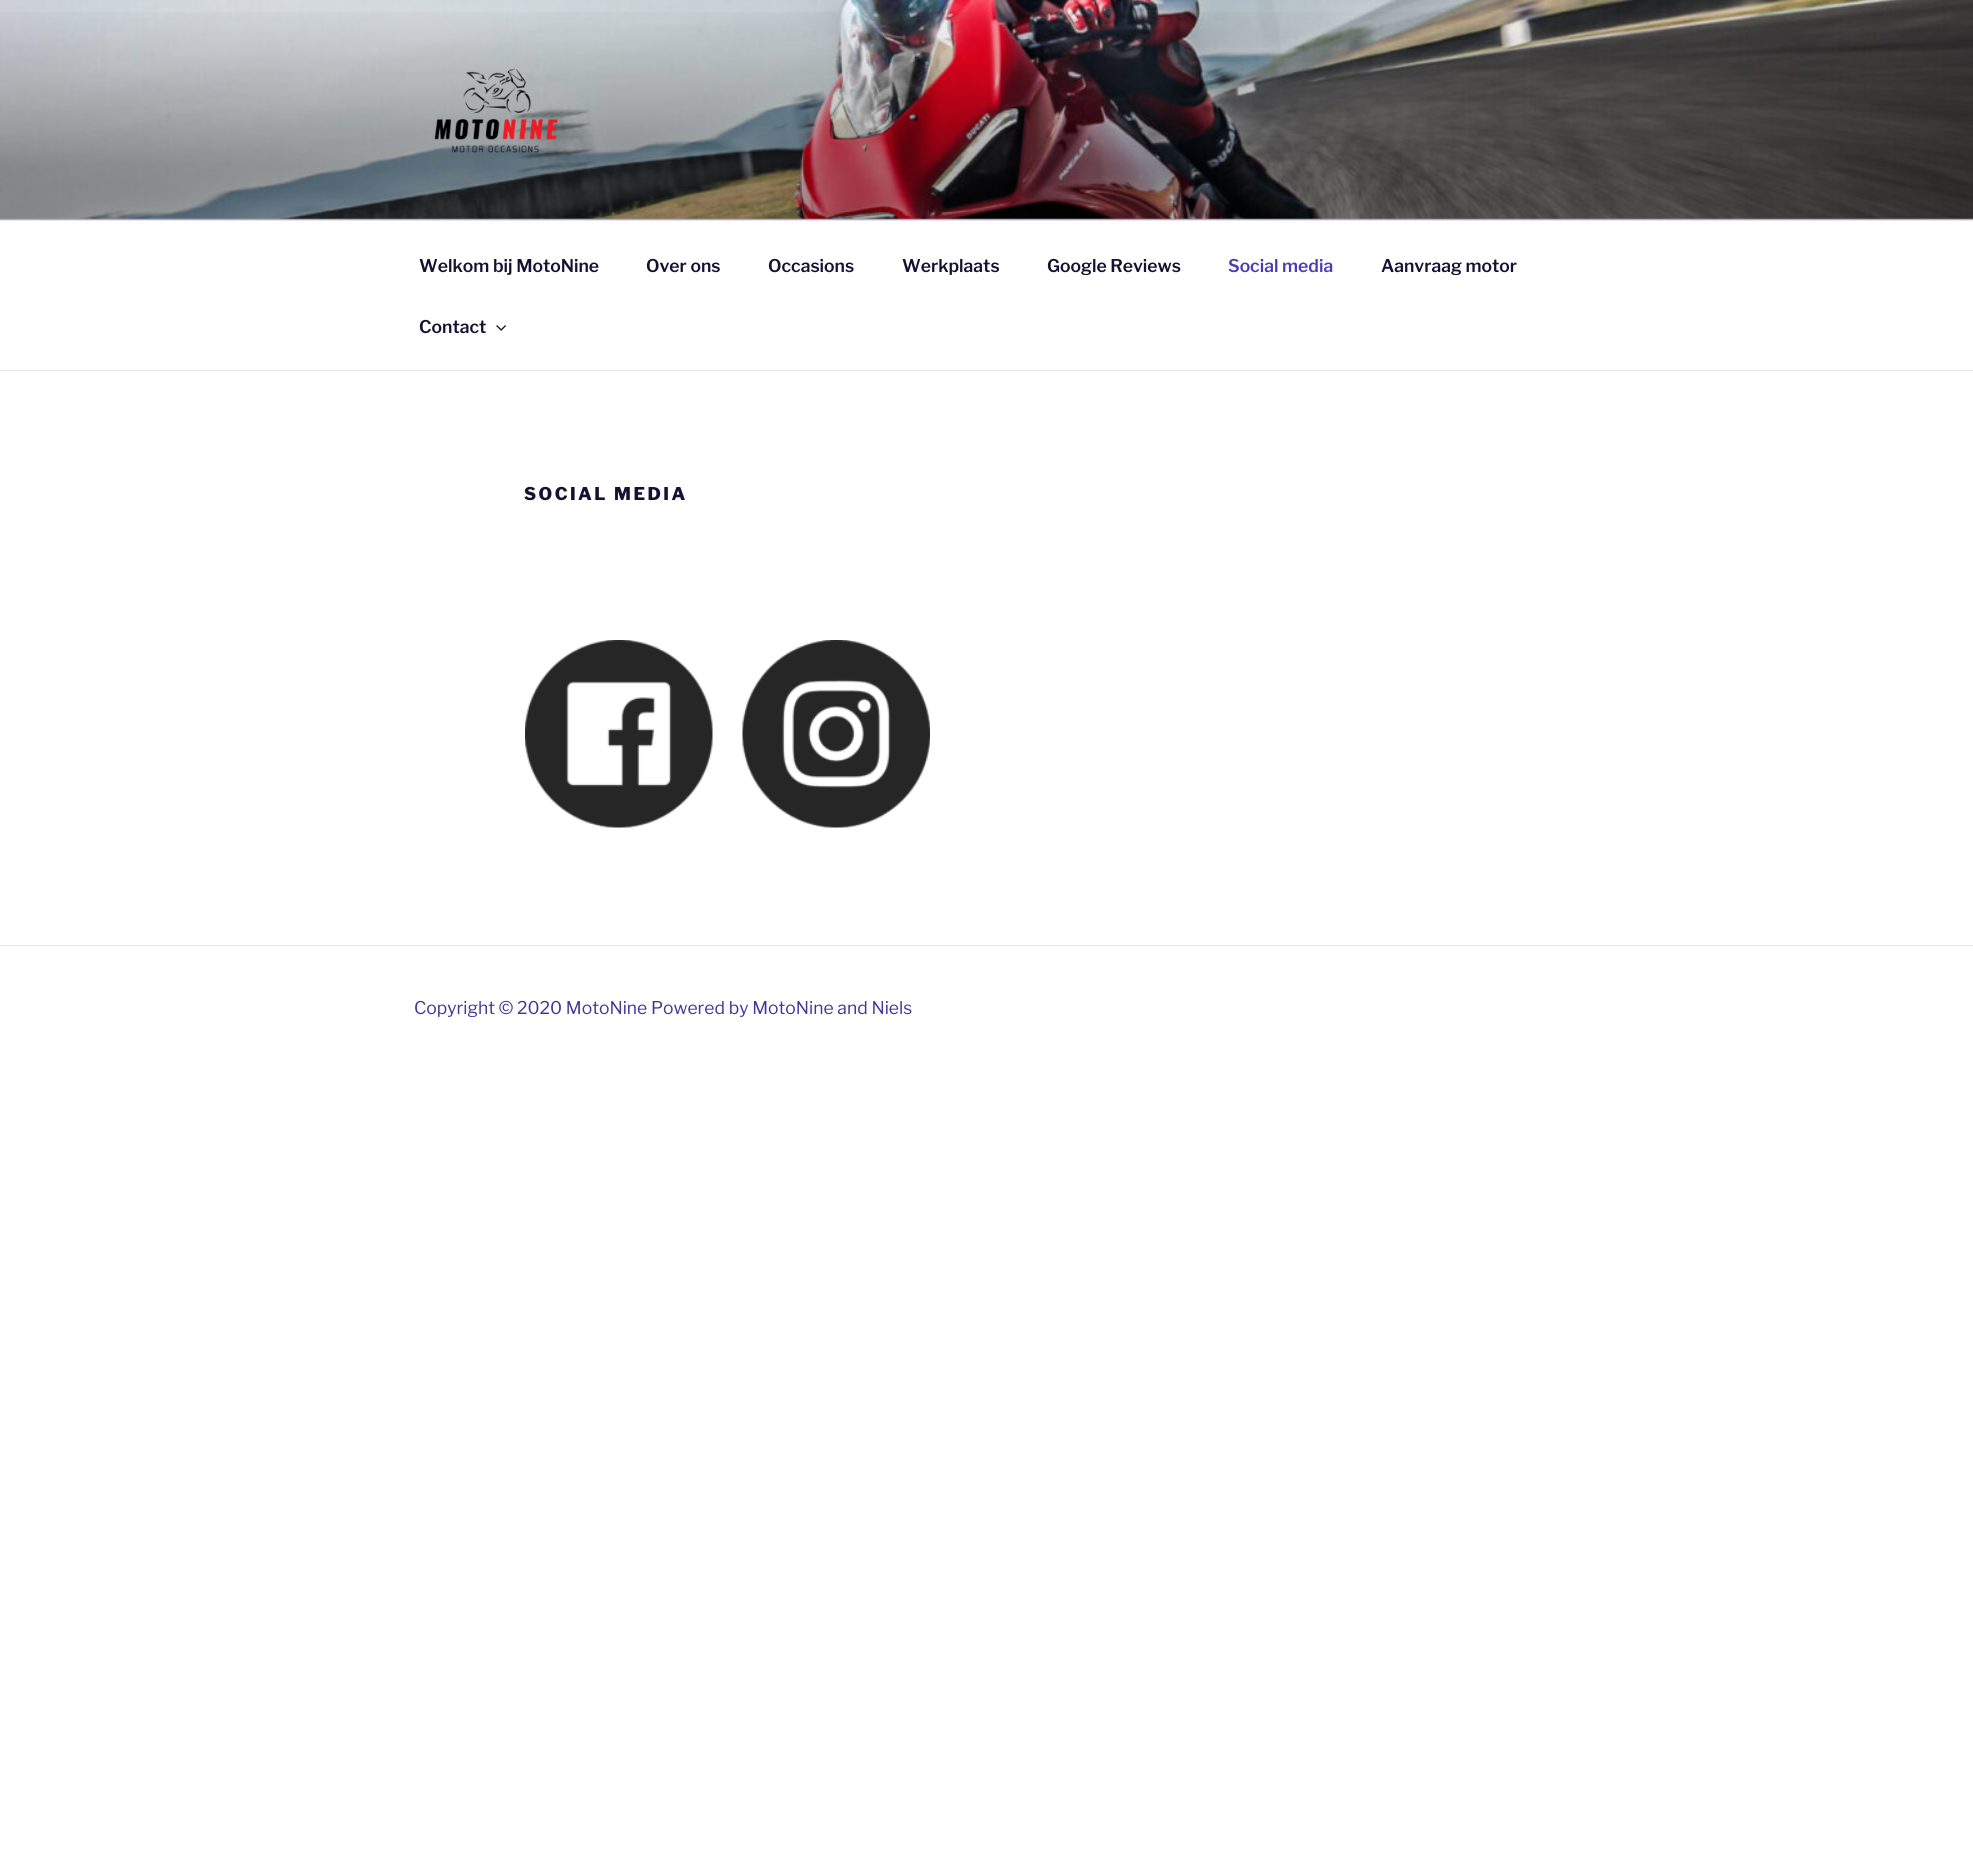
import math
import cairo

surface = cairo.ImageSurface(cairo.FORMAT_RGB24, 1973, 1868)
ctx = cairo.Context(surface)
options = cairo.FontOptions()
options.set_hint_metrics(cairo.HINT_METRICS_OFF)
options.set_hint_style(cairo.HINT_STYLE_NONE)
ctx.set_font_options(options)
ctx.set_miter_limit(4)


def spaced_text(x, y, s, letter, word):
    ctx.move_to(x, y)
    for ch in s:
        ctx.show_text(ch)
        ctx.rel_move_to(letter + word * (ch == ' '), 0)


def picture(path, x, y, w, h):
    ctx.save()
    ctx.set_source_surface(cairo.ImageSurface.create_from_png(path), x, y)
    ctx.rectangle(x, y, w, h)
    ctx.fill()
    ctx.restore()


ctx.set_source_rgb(1, 1, 1)
ctx.paint()
ctx.set_source_rgb(0.973, 0.969, 0.988)
ctx.rectangle(0, 218, 1973, 2)
ctx.fill()
picture("img1.png", 0, 0, 1973, 219)
gradient = cairo.LinearGradient(987, 0, 987, 220)
gradient.add_color_stop_rgba(0, 0, 0, 0, 0)
gradient.add_color_stop_rgba(0.75, 0, 0, 0, 0.3)
gradient.add_color_stop_rgba(1, 0, 0, 0, 0.3)
ctx.set_source(gradient)
ctx.rectangle(0, 12, 1973, 208)
ctx.fill()
picture("img2.png", 434, 68, 124, 85)
ctx.set_source_rgb(0.906, 0.894, 0.965)
ctx.rectangle(0, 220, 1973, 1)
ctx.fill()
ctx.rectangle(0, 370, 1973, 1)
ctx.fill()
ctx.select_font_face("Libre Franklin SemiBold")
ctx.set_font_size(17.5)
ctx.set_source_rgb(0.086, 0.067, 0.196)
ctx.move_to(419, 272)
ctx.show_text("Welkom bij MotoNine")
ctx.move_to(646, 272)
ctx.show_text("Over ons")
ctx.move_to(768, 272)
ctx.show_text("Occasions")
ctx.move_to(902, 272)
ctx.show_text("Werkplaats")
ctx.move_to(1047, 272)
ctx.show_text("Google Reviews")
ctx.set_source_rgb(0.306, 0.231, 0.69)
ctx.move_to(1228, 272)
ctx.show_text("Social media")
ctx.set_source_rgb(0.086, 0.067, 0.196)
ctx.move_to(1381, 272)
ctx.show_text("Aanvraag motor")
ctx.move_to(419, 333)
ctx.show_text("Contact")
picture("img3.png", 496, 325, 10, 6)
ctx.select_font_face("Libre Franklin ExtraBold")
spaced_text(524, 500, "SOCIAL MEDIA", 2.5, 0)
picture("img4.png", 525, 640, 188, 188)
picture("img5.png", 742, 640, 188, 188)
ctx.set_source_rgb(0.906, 0.894, 0.965)
ctx.rectangle(0, 945, 1973, 1)
ctx.fill()
ctx.select_font_face("Libre Franklin")
ctx.set_source_rgb(0.267, 0.2, 0.6)
ctx.move_to(414, 1014)
ctx.show_text("Copyright © 2020 MotoNine Powered by MotoNine and Niels")
surface.write_to_png("page.png")
